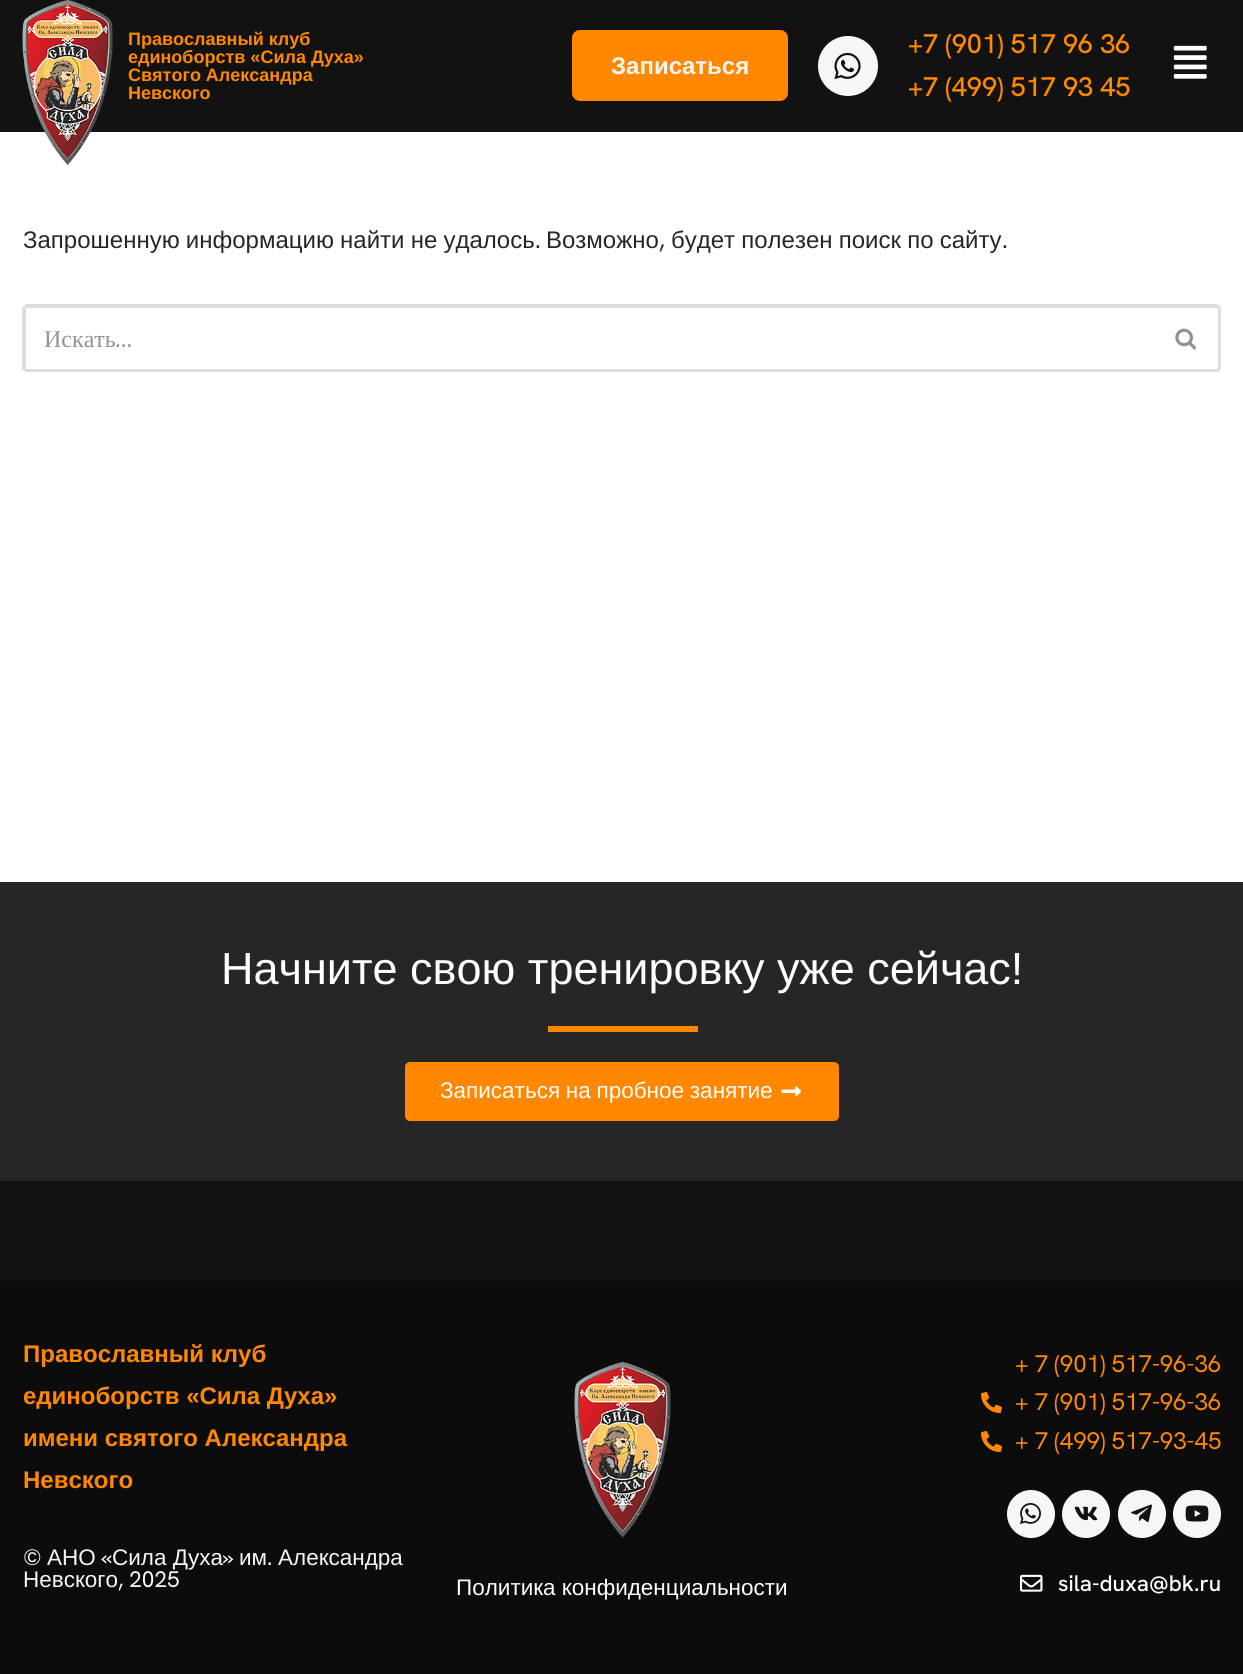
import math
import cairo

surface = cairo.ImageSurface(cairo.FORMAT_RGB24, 1243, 1674)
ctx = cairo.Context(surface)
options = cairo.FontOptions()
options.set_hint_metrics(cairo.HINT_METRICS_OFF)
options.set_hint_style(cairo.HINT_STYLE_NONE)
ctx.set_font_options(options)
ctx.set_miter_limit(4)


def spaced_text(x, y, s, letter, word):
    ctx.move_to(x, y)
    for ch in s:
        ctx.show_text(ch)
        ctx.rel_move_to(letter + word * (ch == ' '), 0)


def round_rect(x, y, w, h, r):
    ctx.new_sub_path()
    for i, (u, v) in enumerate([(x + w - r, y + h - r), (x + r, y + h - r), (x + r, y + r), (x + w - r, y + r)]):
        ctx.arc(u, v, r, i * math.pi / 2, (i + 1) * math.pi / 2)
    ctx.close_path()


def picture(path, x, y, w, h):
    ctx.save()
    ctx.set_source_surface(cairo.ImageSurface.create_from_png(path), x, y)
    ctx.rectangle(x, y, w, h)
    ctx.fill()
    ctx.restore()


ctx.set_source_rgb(1, 1, 1)
ctx.paint()
ctx.set_source_rgb(0.071, 0.071, 0.071)
ctx.rectangle(0, 0, 1243, 132)
ctx.fill()
picture("img1.png", 22, 0, 91, 165)
ctx.select_font_face("Liberation Sans", cairo.FONT_SLANT_NORMAL, cairo.FONT_WEIGHT_BOLD)
ctx.set_font_size(18)
ctx.set_source_rgb(1, 0.533, 0)
ctx.move_to(128, 45)
ctx.show_text("Православный клуб")
ctx.move_to(128, 63)
ctx.show_text("единоборств «Сила Духа»")
ctx.move_to(128, 81)
ctx.show_text("Святого Александра")
ctx.move_to(128, 99)
ctx.show_text("Невского")
round_rect(572, 30, 216, 71, 8)
ctx.fill()
ctx.set_font_size(24)
ctx.set_source_rgb(0.957, 0.961, 0.969)
ctx.move_to(611, 74)
ctx.show_text("Записаться")
ctx.new_path()
ctx.arc(848, 66, 30, 0, 2 * math.pi)
ctx.fill()
picture("img2.png", 834, 52, 27, 28)
ctx.select_font_face("Hanken Grotesk Medium")
ctx.set_font_size(27)
ctx.set_source_rgb(1, 0.533, 0)
ctx.move_to(908, 53)
ctx.show_text("+7 (901) 517 96 36")
ctx.move_to(908, 96)
ctx.show_text("+7 (499) 517 93 45")
picture("img3.png", 1173, 45, 34, 34)
ctx.select_font_face("Liberation Sans")
ctx.set_font_size(24)
ctx.set_source_rgb(0.153, 0.149, 0.149)
spaced_text(23, 248, "Запрошенную информацию найти не удалось", 0, -0.5)
ctx.select_font_face("Hanken Grotesk")
ctx.move_to(535, 248)
ctx.show_text(".")
ctx.select_font_face("Liberation Sans")
ctx.move_to(546, 248)
ctx.show_text("Возможно")
ctx.select_font_face("Hanken Grotesk")
ctx.move_to(659, 248)
ctx.show_text(",")
ctx.select_font_face("Liberation Sans")
spaced_text(671, 248, "будет полезен поиск по сайту", 0, -0.5)
ctx.select_font_face("Hanken Grotesk")
ctx.move_to(1002, 248)
ctx.show_text(".")
ctx.set_source_rgb(0.867, 0.867, 0.867)
ctx.set_fill_rule(cairo.FILL_RULE_EVEN_ODD)
ctx.new_path()
ctx.move_to(27, 304)
ctx.line_to(1154, 304)
ctx.line_to(1154, 372)
ctx.line_to(27, 372)
ctx.curve_to(25, 372, 22, 370, 22, 368)
ctx.line_to(22, 309)
ctx.curve_to(22, 307, 25, 304, 27, 304)
ctx.close_path()
ctx.move_to(27, 308)
ctx.line_to(1154, 308)
ctx.line_to(1154, 369)
ctx.line_to(27, 369)
ctx.curve_to(26, 369, 26, 368, 26, 368)
ctx.line_to(26, 309)
ctx.curve_to(26, 308, 26, 308, 27, 308)
ctx.close_path()
ctx.fill()
ctx.select_font_face("Liberation Serif")
ctx.set_source_rgb(0.576, 0.576, 0.576)
ctx.move_to(44, 347)
ctx.show_text("Искать")
ctx.select_font_face("Hanken Grotesk")
ctx.move_to(115, 347)
ctx.show_text("...")
ctx.set_source_rgb(0.867, 0.867, 0.867)
ctx.new_path()
ctx.move_to(1154, 304)
ctx.line_to(1216, 304)
ctx.curve_to(1219, 304, 1221, 307, 1221, 309)
ctx.line_to(1221, 368)
ctx.curve_to(1221, 370, 1219, 372, 1216, 372)
ctx.line_to(1154, 372)
ctx.close_path()
ctx.move_to(1154, 308)
ctx.line_to(1216, 308)
ctx.curve_to(1217, 308, 1218, 308, 1218, 309)
ctx.line_to(1218, 368)
ctx.curve_to(1218, 368, 1217, 369, 1216, 369)
ctx.line_to(1154, 369)
ctx.close_path()
ctx.fill()
picture("img4.png", 1175, 328, 22, 22)
ctx.set_source_rgb(0.153, 0.149, 0.149)
ctx.rectangle(0, 882, 1243, 299)
ctx.fill()
ctx.select_font_face("Liberation Sans")
ctx.set_font_size(45)
ctx.set_source_rgb(1, 1, 1)
ctx.move_to(221, 984)
ctx.show_text("Начните свою тренировку уже сейчас!")
ctx.set_source_rgb(1, 0.533, 0)
ctx.rectangle(548, 1026, 150, 6)
ctx.fill()
round_rect(405, 1062, 434, 59, 5)
ctx.fill()
ctx.set_font_size(22.5)
ctx.set_source_rgb(1, 1, 1)
spaced_text(440, 1098, "Записаться на пробное занятие", 0, -0.5)
picture("img5.png", 781, 1086, 21, 11)
ctx.set_source_rgb(0.071, 0.071, 0.071)
ctx.rectangle(0, 1181, 1243, 100)
ctx.fill()
ctx.set_source_rgb(0.047, 0.047, 0.047)
ctx.rectangle(0, 1281, 1243, 393)
ctx.fill()
ctx.select_font_face("Liberation Sans", cairo.FONT_SLANT_NORMAL, cairo.FONT_WEIGHT_BOLD)
ctx.set_font_size(24)
ctx.set_source_rgb(1, 0.533, 0)
ctx.move_to(23, 1362)
ctx.show_text("Православный клуб")
ctx.move_to(23, 1404)
ctx.show_text("единоборств «Сила Духа»")
ctx.move_to(23, 1446)
ctx.show_text("имени святого Александра")
ctx.move_to(23, 1488)
ctx.show_text("Невского")
ctx.select_font_face("Hanken Grotesk")
ctx.set_font_size(22.5)
ctx.set_source_rgb(0.957, 0.961, 0.969)
ctx.move_to(23, 1565)
ctx.show_text("©")
ctx.select_font_face("Liberation Sans")
ctx.move_to(47, 1565)
ctx.show_text("АНО")
ctx.select_font_face("Hanken Grotesk")
ctx.move_to(101, 1565)
ctx.show_text("«")
ctx.select_font_face("Liberation Sans")
ctx.move_to(112, 1565)
ctx.show_text("Сила Духа")
ctx.select_font_face("Hanken Grotesk")
ctx.move_to(223, 1565)
ctx.show_text("»")
ctx.select_font_face("Liberation Sans")
ctx.move_to(239, 1565)
ctx.show_text("им")
ctx.select_font_face("Hanken Grotesk")
ctx.move_to(267, 1565)
ctx.show_text(".")
ctx.select_font_face("Liberation Sans")
ctx.move_to(278, 1565)
ctx.show_text("Александра")
ctx.move_to(23, 1587)
ctx.show_text("Невского")
ctx.select_font_face("Hanken Grotesk")
ctx.move_to(118, 1587)
ctx.show_text(", 2025")
picture("img6.png", 574, 1362, 97, 176)
ctx.select_font_face("Liberation Sans")
ctx.set_source_rgb(1, 1, 1)
ctx.move_to(456, 1595)
ctx.show_text("Политика конфиденциальности")
ctx.select_font_face("Hanken Grotesk")
ctx.set_font_size(24)
ctx.set_source_rgb(1, 0.533, 0)
ctx.move_to(1015, 1372)
ctx.show_text("+ 7 (901) 517-96-36")
picture("img7.png", 981, 1392, 21, 21)
ctx.move_to(1015, 1410)
ctx.show_text("+ 7 (901) 517-96-36")
picture("img7.png", 981, 1431, 21, 21)
ctx.move_to(1015, 1449)
ctx.show_text("+ 7 (499) 517-93-45")
ctx.set_source_rgb(0.957, 0.961, 0.969)
ctx.new_path()
ctx.arc(1031, 1514, 24, 0, 2 * math.pi)
ctx.fill()
picture("img8.png", 1020, 1503, 21, 21)
ctx.arc(1086, 1514, 24, 0, 2 * math.pi)
ctx.fill()
picture("img9.png", 1074, 1506, 24, 15)
ctx.arc(1142, 1514, 24, 0, 2 * math.pi)
ctx.fill()
picture("img10.png", 1131, 1504, 21, 19)
ctx.arc(1197, 1514, 24, 0, 2 * math.pi)
ctx.fill()
picture("img11.png", 1185, 1505, 24, 17)
picture("img12.png", 1020, 1574, 23, 18)
ctx.select_font_face("Hanken Grotesk Medium")
ctx.set_font_size(22.5)
ctx.set_source_rgb(1, 1, 1)
ctx.move_to(1058, 1591)
ctx.show_text("sila-duxa@bk.ru")
surface.write_to_png("page.png")
